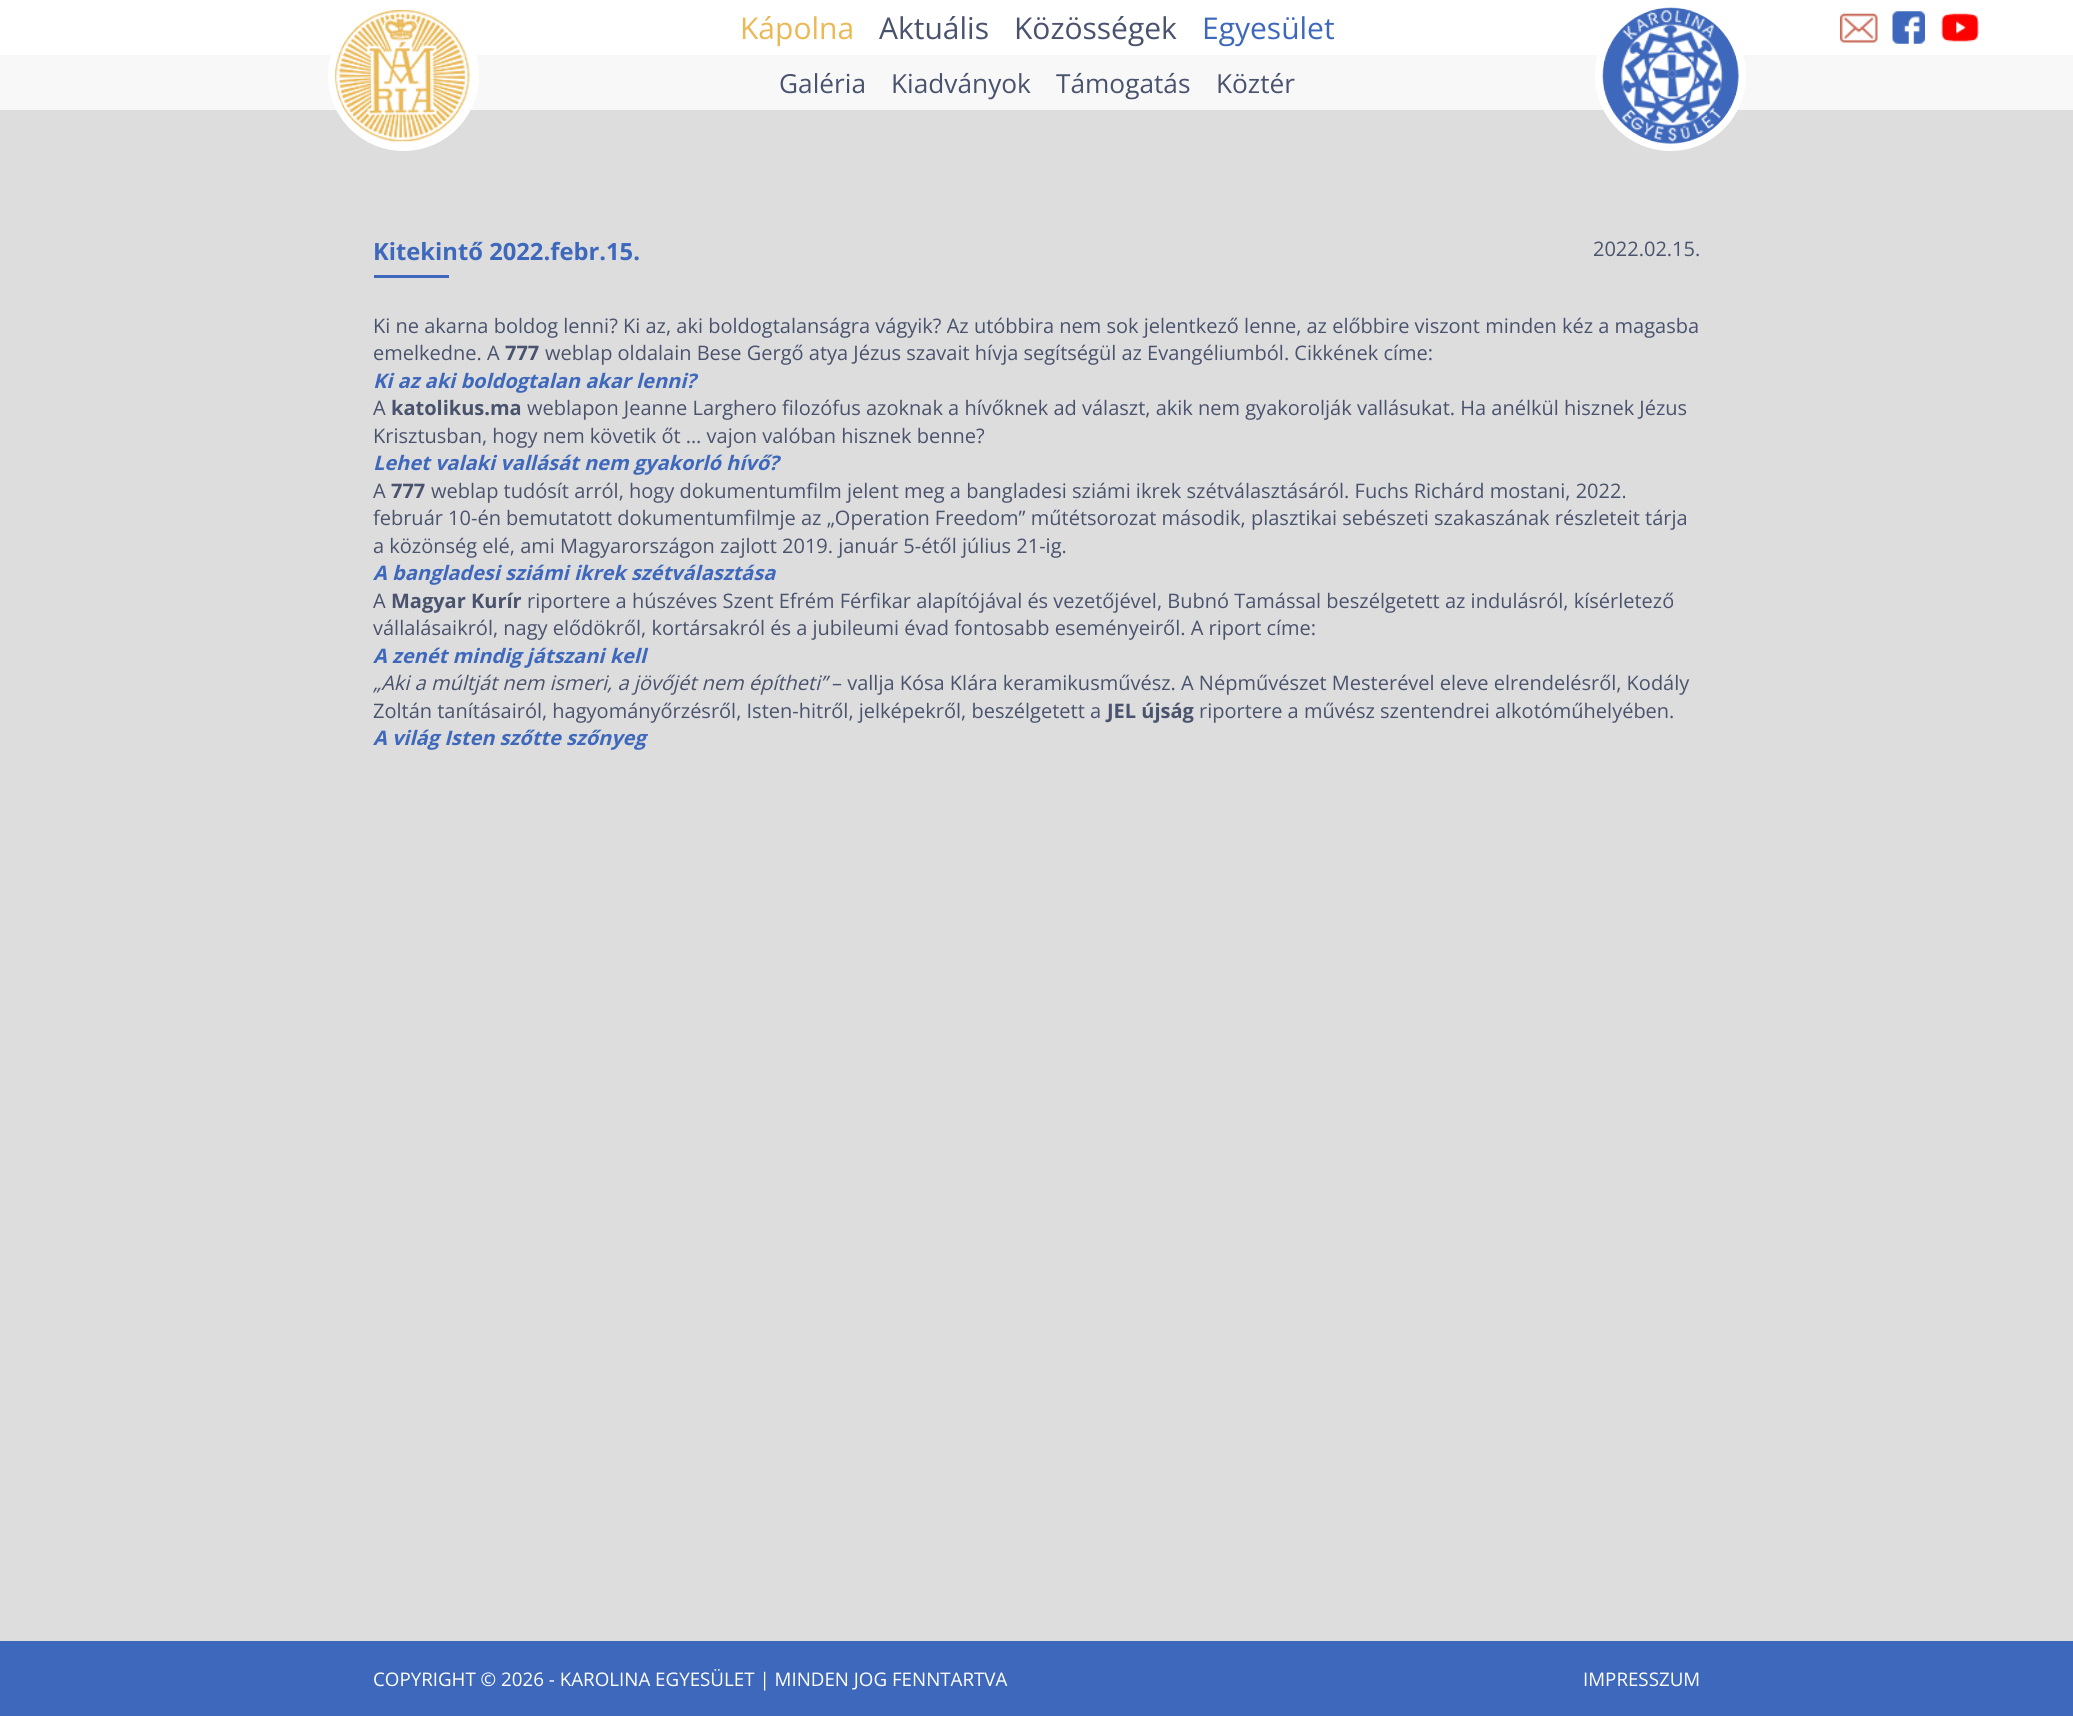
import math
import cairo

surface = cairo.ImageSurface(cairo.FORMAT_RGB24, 2073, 1716)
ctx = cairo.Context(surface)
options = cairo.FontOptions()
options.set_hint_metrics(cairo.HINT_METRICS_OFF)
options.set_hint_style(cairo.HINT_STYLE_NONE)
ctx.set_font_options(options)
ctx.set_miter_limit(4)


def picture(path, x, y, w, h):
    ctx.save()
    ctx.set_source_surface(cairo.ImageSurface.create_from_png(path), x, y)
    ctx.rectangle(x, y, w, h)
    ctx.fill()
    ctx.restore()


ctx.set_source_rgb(0.867, 0.867, 0.867)
ctx.paint()
ctx.set_source_rgb(1, 1, 1)
ctx.rectangle(0, 0, 2073, 55)
ctx.fill()
ctx.set_source_rgb(0.969, 0.969, 0.969)
ctx.rectangle(0, 55, 2073, 55)
ctx.fill()
ctx.set_source_rgb(1, 1, 1)
ctx.arc(403.5, 75.5, 71.5, 0, 2 * math.pi)
ctx.fill_preserve()
ctx.set_line_width(8)
ctx.stroke()
picture("img1.png", 335, 10, 136, 132)
ctx.select_font_face("Open Sans")
ctx.set_font_size(30)
ctx.set_source_rgb(0.918, 0.722, 0.333)
ctx.move_to(740, 39)
ctx.show_text("Kápolna")
ctx.set_source_rgb(0.29, 0.325, 0.431)
ctx.move_to(879, 39)
ctx.show_text("Aktuális")
ctx.move_to(1014, 39)
ctx.show_text("Közösségek")
ctx.set_source_rgb(0.243, 0.408, 0.737)
ctx.move_to(1202, 39)
ctx.show_text("Egyesület")
ctx.new_path()
ctx.arc(1670.5, 75.5, 71.5, 0, 2 * math.pi)
ctx.set_source_rgb(1, 1, 1)
ctx.stroke()
picture("img2.png", 1602, 7, 137, 137)
picture("img3.png", 1840, 13, 38, 30)
picture("img4.png", 1892, 11, 33, 33)
picture("img5.png", 1941, 13, 38, 29)
ctx.set_font_size(26.25)
ctx.set_source_rgb(0.29, 0.325, 0.431)
ctx.move_to(779, 93)
ctx.show_text("Galéria")
ctx.move_to(891, 93)
ctx.show_text("Kiadványok")
ctx.move_to(1056, 93)
ctx.show_text("Támogatás")
ctx.move_to(1216, 93)
ctx.show_text("Köztér")
ctx.select_font_face("Open Sans", cairo.FONT_SLANT_NORMAL, cairo.FONT_WEIGHT_BOLD)
ctx.set_font_size(23.75)
ctx.set_source_rgb(0.243, 0.408, 0.737)
ctx.move_to(373, 260)
ctx.show_text("Kitekintő 2022.febr.15.")
ctx.rectangle(374, 275, 75, 3)
ctx.fill()
ctx.select_font_face("Open Sans")
ctx.set_font_size(20)
ctx.set_source_rgb(0.29, 0.325, 0.431)
ctx.move_to(1593, 256)
ctx.show_text("2022.02.15.")
ctx.move_to(373, 333)
ctx.show_text("Ki ne akarna boldog lenni? Ki az, aki boldogtalanságra vágyik? Az utóbbira nem sok jelentkező lenne, az előbbire viszont minden kéz a magasba")
ctx.move_to(373, 360)
ctx.show_text("emelkedne. A")
ctx.select_font_face("Open Sans", cairo.FONT_SLANT_NORMAL, cairo.FONT_WEIGHT_BOLD)
ctx.move_to(505, 360)
ctx.show_text("777")
ctx.select_font_face("Open Sans")
ctx.move_to(545, 360)
ctx.show_text("weblap oldalain Bese Gergő atya Jézus szavait hívja segítségül az Evangéliumból. Cikkének címe:")
ctx.select_font_face("Open Sans", cairo.FONT_SLANT_ITALIC, cairo.FONT_WEIGHT_BOLD)
ctx.set_source_rgb(0.243, 0.408, 0.737)
ctx.move_to(373, 388)
ctx.show_text("Ki az aki boldogtalan akar lenni?")
ctx.select_font_face("Open Sans")
ctx.set_source_rgb(0.29, 0.325, 0.431)
ctx.move_to(373, 415)
ctx.show_text("A")
ctx.select_font_face("Open Sans", cairo.FONT_SLANT_NORMAL, cairo.FONT_WEIGHT_BOLD)
ctx.move_to(391, 415)
ctx.show_text("katolikus.ma")
ctx.select_font_face("Open Sans")
ctx.move_to(527, 415)
ctx.show_text("weblapon Jeanne Larghero filozófus azoknak a hívőknek ad választ, akik nem gyakorolják vallásukat. Ha anélkül hisznek Jézus")
ctx.move_to(373, 443)
ctx.show_text("Krisztusban, hogy nem követik őt … vajon valóban hisznek benne?")
ctx.select_font_face("Open Sans", cairo.FONT_SLANT_ITALIC, cairo.FONT_WEIGHT_BOLD)
ctx.set_source_rgb(0.243, 0.408, 0.737)
ctx.move_to(373, 470)
ctx.show_text("Lehet valaki vallását nem gyakorló hívő?")
ctx.select_font_face("Open Sans")
ctx.set_source_rgb(0.29, 0.325, 0.431)
ctx.move_to(373, 498)
ctx.show_text("A")
ctx.select_font_face("Open Sans", cairo.FONT_SLANT_NORMAL, cairo.FONT_WEIGHT_BOLD)
ctx.move_to(391, 498)
ctx.show_text("777")
ctx.select_font_face("Open Sans")
ctx.move_to(431, 498)
ctx.show_text("weblap tudósít arról, hogy dokumentumfilm jelent meg a bangladesi sziámi ikrek szétválasztásáról. Fuchs Richárd mostani, 2022.")
ctx.move_to(373, 525)
ctx.show_text("február 10-én bemutatott dokumentumfilmje az „Operation Freedom” műtétsorozat második, plasztikai sebészeti szakaszának részleteit tárja")
ctx.move_to(373, 553)
ctx.show_text("a közönség elé, ami Magyarországon zajlott 2019. január 5-étől július 21-ig.")
ctx.select_font_face("Open Sans", cairo.FONT_SLANT_ITALIC, cairo.FONT_WEIGHT_BOLD)
ctx.set_source_rgb(0.243, 0.408, 0.737)
ctx.move_to(373, 580)
ctx.show_text("A bangladesi sziámi ikrek szétválasztása")
ctx.select_font_face("Open Sans")
ctx.set_source_rgb(0.29, 0.325, 0.431)
ctx.move_to(373, 608)
ctx.show_text("A")
ctx.select_font_face("Open Sans", cairo.FONT_SLANT_NORMAL, cairo.FONT_WEIGHT_BOLD)
ctx.move_to(391, 608)
ctx.show_text("Magyar Kurír")
ctx.select_font_face("Open Sans")
ctx.move_to(527, 608)
ctx.show_text("riportere a húszéves Szent Efrém Férfikar alapítójával és vezetőjével, Bubnó Tamással beszélgetett az indulásról, kísérletező")
ctx.move_to(373, 635)
ctx.show_text("vállalásaikról, nagy elődökről, kortársakról és a jubileumi évad fontosabb eseményeiről. A riport címe:")
ctx.select_font_face("Open Sans", cairo.FONT_SLANT_ITALIC, cairo.FONT_WEIGHT_BOLD)
ctx.set_source_rgb(0.243, 0.408, 0.737)
ctx.move_to(373, 663)
ctx.show_text("A zenét mindig játszani kell")
ctx.select_font_face("Open Sans", cairo.FONT_SLANT_ITALIC)
ctx.set_source_rgb(0.29, 0.325, 0.431)
ctx.move_to(373, 690)
ctx.show_text("„Aki a múltját nem ismeri, a jövőjét nem építheti”")
ctx.select_font_face("Open Sans")
ctx.move_to(832, 690)
ctx.show_text("– vallja Kósa Klára keramikusművész. A Népművészet Mesterével eleve elrendelésről, Kodály")
ctx.move_to(373, 718)
ctx.show_text("Zoltán tanításairól, hagyományőrzésről, Isten-hitről, jelképekről, beszélgetett a")
ctx.select_font_face("Open Sans", cairo.FONT_SLANT_NORMAL, cairo.FONT_WEIGHT_BOLD)
ctx.move_to(1107, 718)
ctx.show_text("JEL újság")
ctx.select_font_face("Open Sans")
ctx.move_to(1199, 718)
ctx.show_text("riportere a művész szentendrei alkotóműhelyében.")
ctx.select_font_face("Open Sans", cairo.FONT_SLANT_ITALIC, cairo.FONT_WEIGHT_BOLD)
ctx.set_source_rgb(0.243, 0.408, 0.737)
ctx.move_to(373, 745)
ctx.show_text("A világ Isten szőtte szőnyeg")
ctx.rectangle(0, 1641, 2073, 75)
ctx.fill()
ctx.select_font_face("Open Sans")
ctx.set_font_size(18.75)
ctx.set_source_rgb(1, 1, 1)
ctx.move_to(373, 1686)
ctx.show_text("COPYRIGHT © 2026 - KAROLINA EGYESÜLET | MINDEN JOG FENNTARTVA")
ctx.move_to(1583, 1686)
ctx.show_text("IMPRESSZUM")
surface.write_to_png("page.png")
